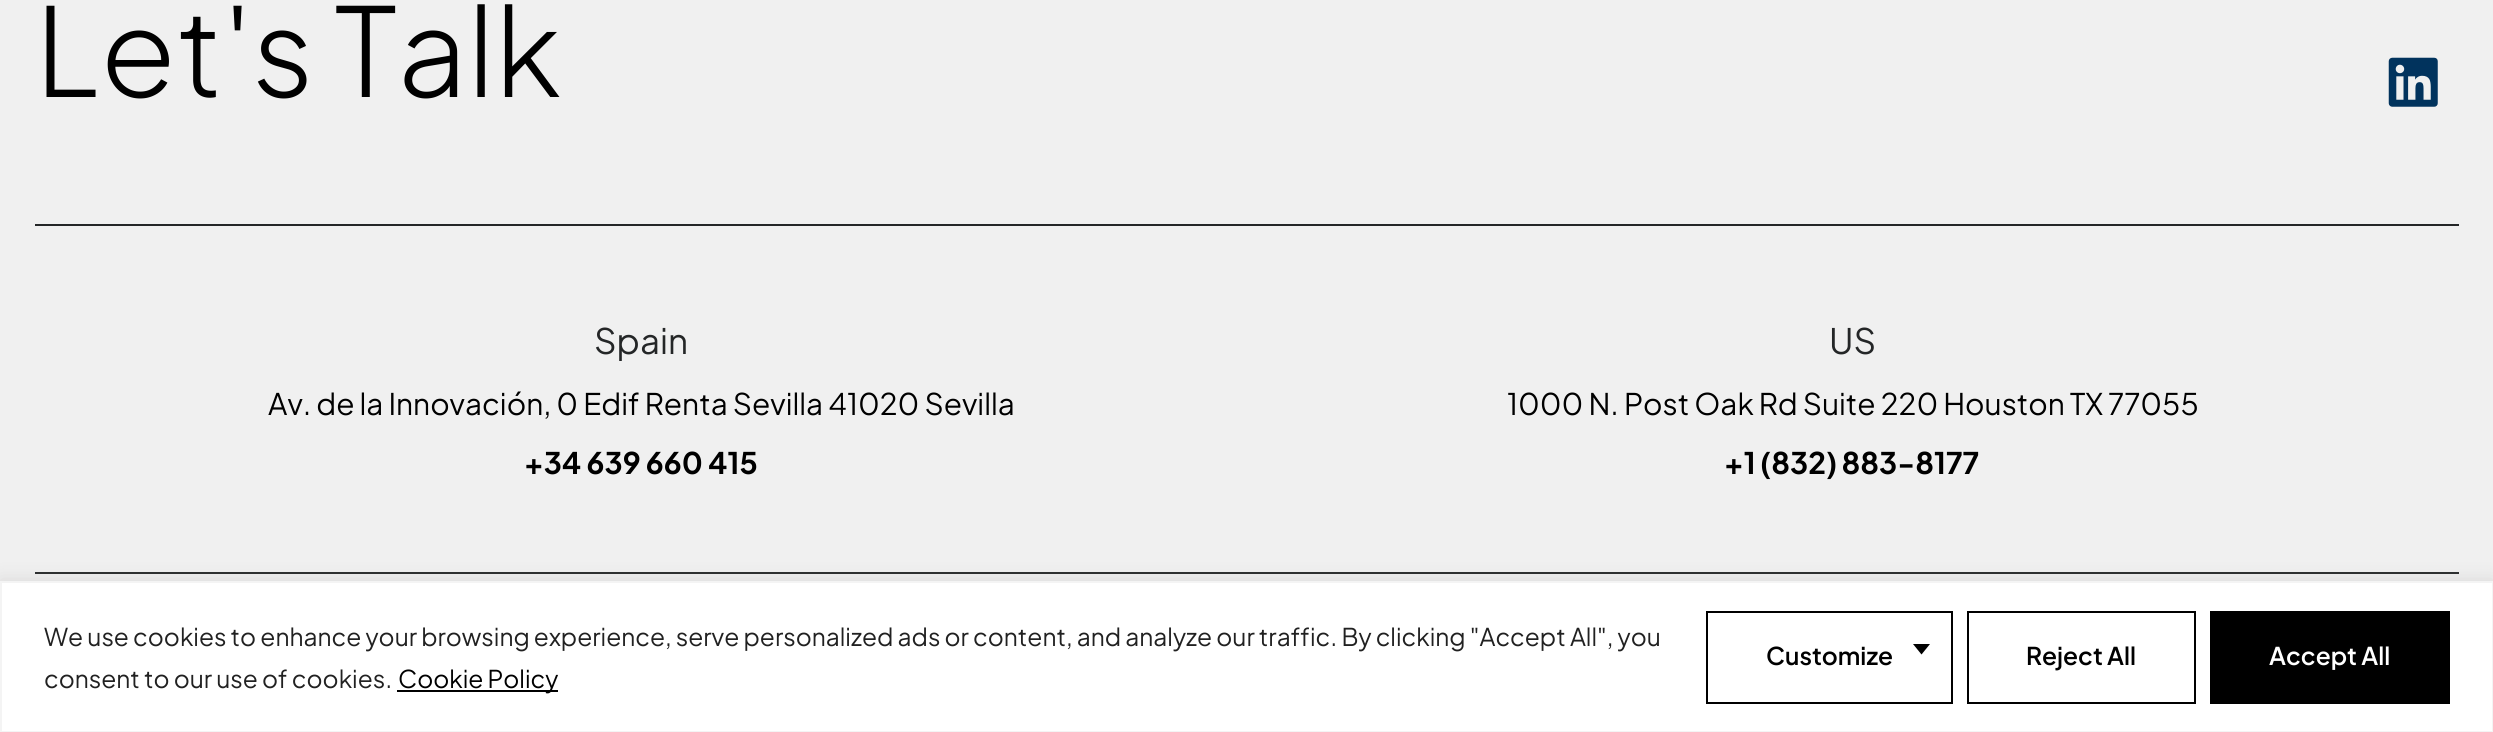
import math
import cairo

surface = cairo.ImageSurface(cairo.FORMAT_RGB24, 2493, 732)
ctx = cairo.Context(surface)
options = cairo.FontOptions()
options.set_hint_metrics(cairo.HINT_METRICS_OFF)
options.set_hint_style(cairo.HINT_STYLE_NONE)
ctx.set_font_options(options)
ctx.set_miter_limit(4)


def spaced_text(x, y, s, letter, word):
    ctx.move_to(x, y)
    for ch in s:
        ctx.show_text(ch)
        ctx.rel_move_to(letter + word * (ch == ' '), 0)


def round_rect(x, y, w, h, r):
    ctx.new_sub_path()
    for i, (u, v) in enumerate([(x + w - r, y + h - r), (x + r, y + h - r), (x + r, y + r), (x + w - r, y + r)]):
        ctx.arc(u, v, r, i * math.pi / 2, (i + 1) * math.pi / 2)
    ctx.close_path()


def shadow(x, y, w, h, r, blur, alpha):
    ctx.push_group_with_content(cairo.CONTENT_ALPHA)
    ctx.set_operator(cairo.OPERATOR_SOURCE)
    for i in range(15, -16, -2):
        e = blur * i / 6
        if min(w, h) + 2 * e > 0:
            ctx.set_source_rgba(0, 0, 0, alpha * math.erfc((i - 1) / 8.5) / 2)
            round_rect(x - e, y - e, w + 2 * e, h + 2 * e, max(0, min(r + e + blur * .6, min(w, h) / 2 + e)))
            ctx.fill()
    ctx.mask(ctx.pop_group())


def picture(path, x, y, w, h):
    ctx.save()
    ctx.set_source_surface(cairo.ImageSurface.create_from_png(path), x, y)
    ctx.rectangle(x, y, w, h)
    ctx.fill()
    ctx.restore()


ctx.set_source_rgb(0.941, 0.941, 0.941)
ctx.paint()
ctx.select_font_face("Plus Jakarta Sans Light")
ctx.set_font_size(122.5)
ctx.set_source_rgb(0, 0, 0)
ctx.move_to(35, 97)
ctx.show_text("Let's Talk")
picture("img1.png", 2388, 57, 50, 50)
ctx.set_source_rgb(0.141, 0.149, 0.153)
ctx.rectangle(35, 224, 2424, 2)
ctx.fill()
ctx.select_font_face("Plus Jakarta Sans")
ctx.set_font_size(35)
ctx.move_to(594, 354)
ctx.show_text("Spain")
ctx.set_font_size(29.75)
ctx.set_source_rgb(0, 0, 0)
ctx.move_to(268, 415)
ctx.show_text("Av. de la Innovación, 0 Edif Renta Sevilla 41020 Sevilla")
ctx.select_font_face("Plus Jakarta Sans", cairo.FONT_SLANT_NORMAL, cairo.FONT_WEIGHT_BOLD)
ctx.move_to(524, 474)
ctx.show_text("+34 639 660 415")
ctx.select_font_face("Plus Jakarta Sans")
ctx.set_font_size(35)
ctx.set_source_rgb(0.141, 0.149, 0.153)
ctx.move_to(1829, 354)
ctx.show_text("US")
ctx.set_font_size(29.75)
ctx.set_source_rgb(0, 0, 0)
ctx.move_to(1507, 415)
ctx.show_text("1000 N. Post Oak Rd Suite 220 Houston TX 77055")
ctx.select_font_face("Plus Jakarta Sans", cairo.FONT_SLANT_NORMAL, cairo.FONT_WEIGHT_BOLD)
spaced_text(1724, 474, "+1 (832) 883-8177", 0, -1)
ctx.set_source_rgb(0.141, 0.149, 0.153)
ctx.rectangle(35, 572, 2424, 2)
ctx.fill()
ctx.set_source_rgb(0.675, 0.671, 0.671)
shadow(0, 579, 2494, 153, 0, 9, 0.3)
ctx.set_source_rgb(1, 1, 1)
ctx.rectangle(1, 582, 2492, 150)
ctx.fill_preserve()
ctx.set_source_rgb(0.957, 0.957, 0.957)
ctx.stroke()
ctx.select_font_face("Plus Jakarta Sans")
ctx.set_font_size(24.5)
ctx.set_source_rgb(0.129, 0.129, 0.129)
ctx.move_to(44, 646)
ctx.show_text("We use cookies to enhance your browsing experience, serve personalized ads or content, and analyze our traffic. By clicking \"Accept All\", you")
ctx.move_to(44, 688)
ctx.show_text("consent to our use of cookies.")
ctx.set_source_rgb(0, 0, 0)
ctx.rectangle(397, 690, 161, 2)
ctx.fill()
ctx.move_to(398, 688)
ctx.show_text("Cookie Policy")
ctx.rectangle(1707, 612, 245, 91)
ctx.stroke()
ctx.select_font_face("Plus Jakarta Sans SemiBold")
ctx.move_to(1766, 665)
ctx.show_text("Customize")
ctx.new_path()
ctx.move_to(1913, 644)
ctx.line_to(1930, 644)
ctx.line_to(1921.5, 654.5)
ctx.close_path()
ctx.fill()
ctx.rectangle(1968, 612, 227, 91)
ctx.stroke()
ctx.move_to(2026, 665)
ctx.show_text("Reject All")
ctx.rectangle(2210, 611, 240, 93)
ctx.fill()
ctx.set_source_rgb(1, 1, 1)
ctx.move_to(2269, 665)
ctx.show_text("Accept All")
surface.write_to_png("page.png")
